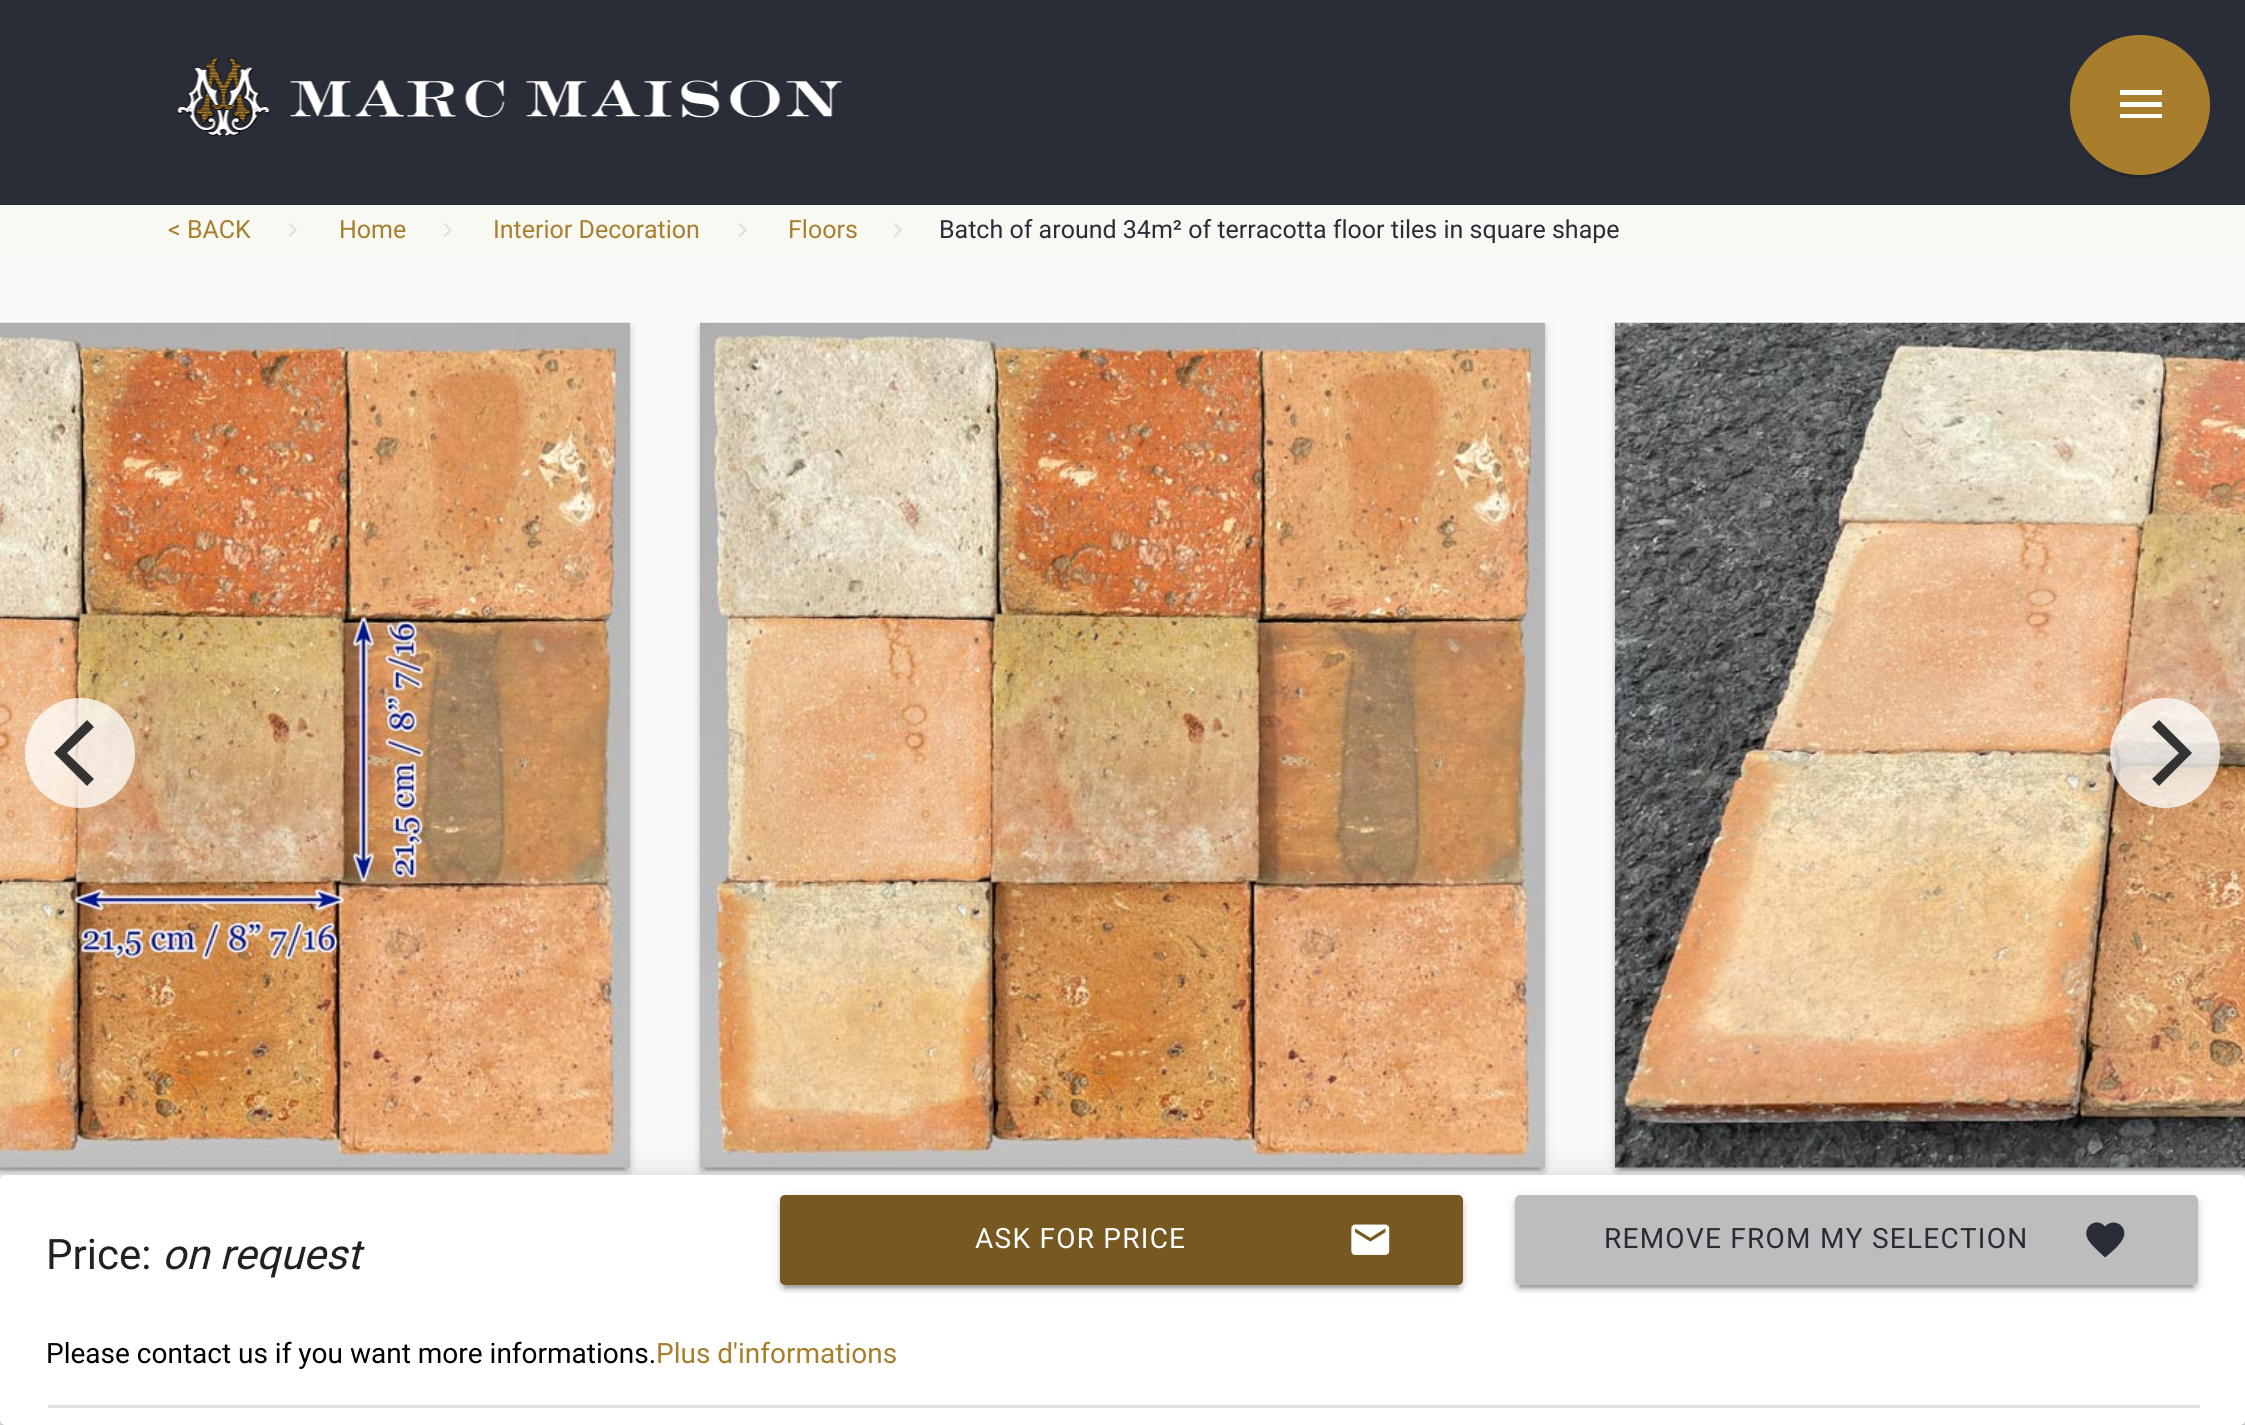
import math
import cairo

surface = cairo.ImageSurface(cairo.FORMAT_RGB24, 2245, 1425)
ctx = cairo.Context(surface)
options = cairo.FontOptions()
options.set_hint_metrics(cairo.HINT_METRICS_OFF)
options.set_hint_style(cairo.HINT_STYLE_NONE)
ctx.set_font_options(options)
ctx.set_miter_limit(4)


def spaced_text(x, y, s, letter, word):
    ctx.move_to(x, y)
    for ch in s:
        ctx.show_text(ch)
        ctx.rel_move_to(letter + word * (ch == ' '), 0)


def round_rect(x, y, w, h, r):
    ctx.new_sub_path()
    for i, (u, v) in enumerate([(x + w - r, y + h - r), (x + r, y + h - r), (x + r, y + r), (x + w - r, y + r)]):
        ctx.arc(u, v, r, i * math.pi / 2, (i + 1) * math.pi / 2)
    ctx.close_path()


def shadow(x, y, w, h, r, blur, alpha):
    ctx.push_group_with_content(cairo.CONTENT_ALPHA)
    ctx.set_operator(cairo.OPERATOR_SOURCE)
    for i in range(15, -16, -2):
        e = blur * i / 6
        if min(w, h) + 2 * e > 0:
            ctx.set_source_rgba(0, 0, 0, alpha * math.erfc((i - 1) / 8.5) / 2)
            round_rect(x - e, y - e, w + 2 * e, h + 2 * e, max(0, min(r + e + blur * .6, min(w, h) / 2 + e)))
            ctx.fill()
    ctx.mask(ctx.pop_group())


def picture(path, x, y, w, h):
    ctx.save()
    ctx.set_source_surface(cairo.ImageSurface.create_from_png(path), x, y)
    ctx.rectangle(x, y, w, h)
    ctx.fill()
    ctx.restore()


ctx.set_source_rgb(1, 1, 1)
ctx.paint()
ctx.set_source_rgb(0.161, 0.176, 0.22)
ctx.rectangle(0, 0, 2245, 205)
ctx.fill()
picture("img1.png", 176, 57, 666, 80)
ctx.set_source_rgb(0, 0, 0)
shadow(2075, 48, 130, 130, 65, 1, 0.2)
ctx.set_source_rgb(0.659, 0.494, 0.176)
ctx.arc(2140, 105, 70, 0, 2 * math.pi)
ctx.fill()
ctx.set_source_rgb(1, 1, 1)
ctx.new_path()
ctx.move_to(2120, 90)
ctx.line_to(2162, 90)
ctx.line_to(2162, 95)
ctx.line_to(2120, 95)
ctx.close_path()
ctx.move_to(2120, 107)
ctx.line_to(2120, 102)
ctx.line_to(2162, 102)
ctx.line_to(2162, 107)
ctx.close_path()
ctx.move_to(2120, 118)
ctx.line_to(2120, 114)
ctx.line_to(2162, 114)
ctx.line_to(2162, 118)
ctx.close_path()
ctx.fill()
ctx.set_source_rgb(0.973, 0.976, 0.957)
ctx.rectangle(0, 205, 2245, 48)
ctx.fill()
ctx.select_font_face("Roboto")
ctx.set_font_size(25)
ctx.set_source_rgb(0.659, 0.494, 0.176)
ctx.move_to(168, 238)
ctx.show_text("< BACK")
picture("img2.png", 288, 223, 9, 14)
ctx.move_to(339, 238)
ctx.show_text("Home")
picture("img2.png", 443, 223, 9, 14)
ctx.move_to(493, 238)
ctx.show_text("Interior Decoration")
picture("img2.png", 738, 223, 9, 14)
ctx.move_to(788, 238)
ctx.show_text("Floors")
picture("img2.png", 893, 223, 9, 14)
ctx.set_source_rgb(0.161, 0.176, 0.22)
ctx.move_to(939, 238)
ctx.show_text("Batch of around 34m² of terracotta floor tiles in square shape")
ctx.set_source_rgb(0.98, 0.98, 0.98)
ctx.rectangle(0, 253, 2245, 927)
ctx.fill()
ctx.set_source_rgb(0, 0, 0)
shadow(-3, 335, 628, 835, 0, 1, 0.2)
ctx.save()
ctx.rectangle(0, 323, 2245, 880)
ctx.clip()
shadow(-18, 325, 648, 845, 0, 6, 0.12)
ctx.restore()
shadow(-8, 328, 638, 845, 0, 2.5, 0.14)
picture("img3.png", 0, 322, 630, 846)
shadow(705, 335, 835, 835, 0, 1, 0.2)
ctx.save()
ctx.rectangle(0, 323, 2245, 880)
ctx.clip()
shadow(700, 325, 845, 845, 0, 6, 0.12)
ctx.restore()
shadow(700, 328, 845, 845, 0, 2.5, 0.14)
picture("img4.png", 700, 322, 845, 846)
shadow(1620, 335, 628, 835, 0, 1, 0.2)
ctx.save()
ctx.rectangle(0, 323, 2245, 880)
ctx.clip()
shadow(1615, 325, 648, 845, 0, 6, 0.12)
ctx.restore()
shadow(1615, 328, 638, 845, 0, 2.5, 0.14)
picture("img5.png", 1614, 322, 631, 846)
ctx.set_source_rgba(1, 1, 1, 0.75)
ctx.arc(80, 753, 55, 0, 2 * math.pi)
ctx.fill()
ctx.set_source_rgb(0.2, 0.2, 0.2)
ctx.new_path()
ctx.move_to(54, 753)
ctx.line_to(87, 786)
ctx.line_to(94, 779)
ctx.line_to(67, 753)
ctx.line_to(94, 727)
ctx.line_to(87, 720)
ctx.close_path()
ctx.fill()
ctx.set_source_rgba(1, 1, 1, 0.75)
ctx.arc(2165, 753, 55, 0, 2 * math.pi)
ctx.fill()
ctx.set_source_rgb(0.2, 0.2, 0.2)
ctx.new_path()
ctx.move_to(2192, 753)
ctx.line_to(2159, 720)
ctx.line_to(2152, 727)
ctx.line_to(2179, 753)
ctx.line_to(2152, 779)
ctx.line_to(2159, 786)
ctx.close_path()
ctx.fill()
ctx.set_source_rgb(0, 0, 0)
shadow(3, 1185, 2240, 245, 2.5, 6, 0.3)
shadow(0, 1178, 2245, 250, 5, 22.5, 0.12)
shadow(0, 1190, 2245, 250, 5, 12.5, 0.14)
ctx.set_source_rgb(1, 1, 1)
round_rect(0, 1175, 2245, 250, 5)
ctx.fill()
ctx.set_font_size(42)
ctx.set_source_rgb(0.129, 0.129, 0.129)
ctx.move_to(46, 1269)
ctx.show_text("Price:")
ctx.select_font_face("Roboto", cairo.FONT_SLANT_ITALIC)
ctx.move_to(162, 1269)
ctx.show_text("on request")
ctx.set_source_rgb(0, 0, 0)
shadow(785, 1208, 673, 80, 0, 1, 0.2)
shadow(780, 1198, 683, 90, 5, 6, 0.12)
shadow(780, 1200, 683, 90, 5, 2.5, 0.14)
ctx.set_source_rgb(0.463, 0.345, 0.125)
round_rect(780, 1195, 683, 90, 5)
ctx.fill()
ctx.select_font_face("Roboto")
ctx.set_font_size(28)
ctx.set_source_rgb(1, 1, 1)
spaced_text(975, 1248, "ASK FOR PRICE", 1.25, 0)
picture("img6.png", 1351, 1224, 39, 31)
ctx.set_source_rgb(0, 0, 0)
shadow(1520, 1208, 673, 80, 0, 1, 0.2)
shadow(1515, 1198, 683, 90, 5, 6, 0.12)
shadow(1515, 1200, 683, 90, 5, 2.5, 0.14)
ctx.set_source_rgb(0.741, 0.741, 0.741)
round_rect(1515, 1195, 683, 90, 5)
ctx.fill()
ctx.set_source_rgb(0.161, 0.176, 0.22)
spaced_text(1604, 1248, "REMOVE FROM MY SELECTION", 1.25, 0)
ctx.new_path()
ctx.move_to(2105, 1257.5)
ctx.curve_to(2100, 1252.5, 2090.5, 1245, 2087.5, 1238.5)
ctx.curve_to(2082, 1226.5, 2096.5, 1216.5, 2105, 1226.5)
ctx.curve_to(2113.5, 1217, 2128, 1226, 2123.5, 1237.5)
ctx.curve_to(2120, 1245.5, 2111.5, 1252, 2105, 1257.5)
ctx.close_path()
ctx.fill()
ctx.set_source_rgb(0, 0, 0)
ctx.move_to(46, 1363)
ctx.show_text("Please contact us if you want more informations.")
ctx.set_source_rgb(0.659, 0.494, 0.176)
ctx.move_to(656, 1363)
ctx.show_text("Plus d'informations")
ctx.set_source_rgb(0.878, 0.878, 0.878)
ctx.rectangle(48, 1405, 2152, 3)
ctx.fill()
surface.write_to_png("page.png")
